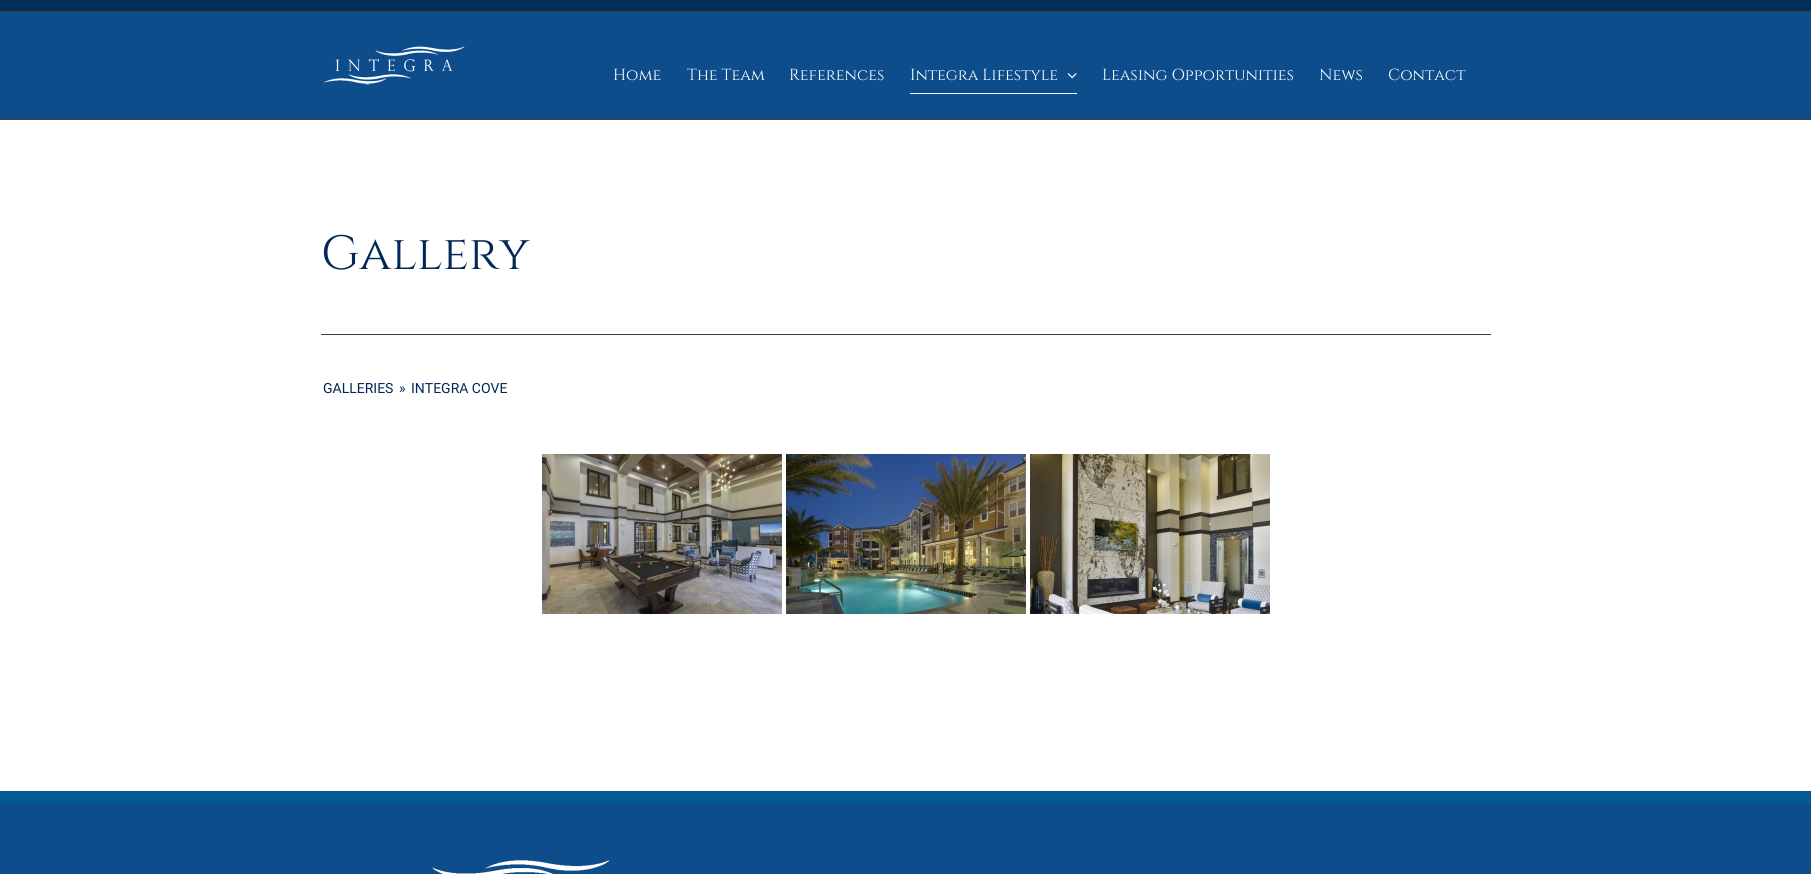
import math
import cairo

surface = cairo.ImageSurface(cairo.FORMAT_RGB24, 1811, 874)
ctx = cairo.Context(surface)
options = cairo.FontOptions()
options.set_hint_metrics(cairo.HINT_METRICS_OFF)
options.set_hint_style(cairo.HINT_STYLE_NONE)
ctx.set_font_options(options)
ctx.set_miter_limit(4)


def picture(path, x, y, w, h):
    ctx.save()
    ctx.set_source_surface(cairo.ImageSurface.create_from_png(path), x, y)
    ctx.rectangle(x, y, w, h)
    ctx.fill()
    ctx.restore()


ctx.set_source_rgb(1, 1, 1)
ctx.paint()
ctx.set_source_rgb(0.004, 0.18, 0.333)
ctx.rectangle(0, 0, 1811, 11)
ctx.fill()
ctx.set_source_rgb(0.243, 0.243, 0.243)
ctx.rectangle(0, 11, 1811, 1)
ctx.fill()
ctx.set_source_rgb(0.051, 0.302, 0.545)
ctx.rectangle(0, 12, 1811, 107)
ctx.fill()
ctx.set_source_rgb(0.243, 0.243, 0.243)
ctx.rectangle(0, 119, 1811, 1)
ctx.fill()
picture("img1.png", 323, 46, 142, 39)
ctx.select_font_face("Cinzel")
ctx.set_font_size(16)
ctx.set_source_rgb(1, 1, 1)
ctx.move_to(613, 80)
ctx.show_text("Home")
ctx.move_to(687, 80)
ctx.show_text("The Team")
ctx.move_to(789, 80)
ctx.show_text("References")
ctx.move_to(910, 80)
ctx.show_text("Integra Lifestyle")
picture("img2.png", 1067, 73, 10, 6)
ctx.rectangle(910, 93, 167, 1)
ctx.fill()
ctx.move_to(1102, 80)
ctx.show_text("Leasing Opportunities")
ctx.move_to(1319, 80)
ctx.show_text("News")
ctx.move_to(1388, 80)
ctx.show_text("Contact")
ctx.set_font_size(48)
ctx.set_source_rgb(0.008, 0.157, 0.333)
ctx.move_to(321, 269)
ctx.show_text("Gallery")
ctx.set_source_rgb(0.243, 0.243, 0.243)
ctx.rectangle(321, 334, 1170, 1)
ctx.fill()
ctx.select_font_face("Roboto")
ctx.set_font_size(14)
ctx.set_source_rgb(0.008, 0.157, 0.333)
ctx.move_to(323, 393)
ctx.show_text("GALLERIES")
ctx.move_to(399, 393)
ctx.show_text("»")
ctx.move_to(411, 393)
ctx.show_text("INTEGRA COVE")
picture("img3.png", 542, 454, 240, 160)
picture("img4.png", 786, 454, 240, 160)
picture("img5.png", 1030, 454, 240, 160)
ctx.set_source_rgb(0.051, 0.302, 0.545)
ctx.rectangle(0, 803, 1811, 71)
ctx.fill()
ctx.set_source_rgb(0.024, 0.353, 0.576)
ctx.rectangle(0, 791, 1811, 12)
ctx.fill()
picture("img6.png", 432, 860, 178, 14)
surface.write_to_png("page.png")
